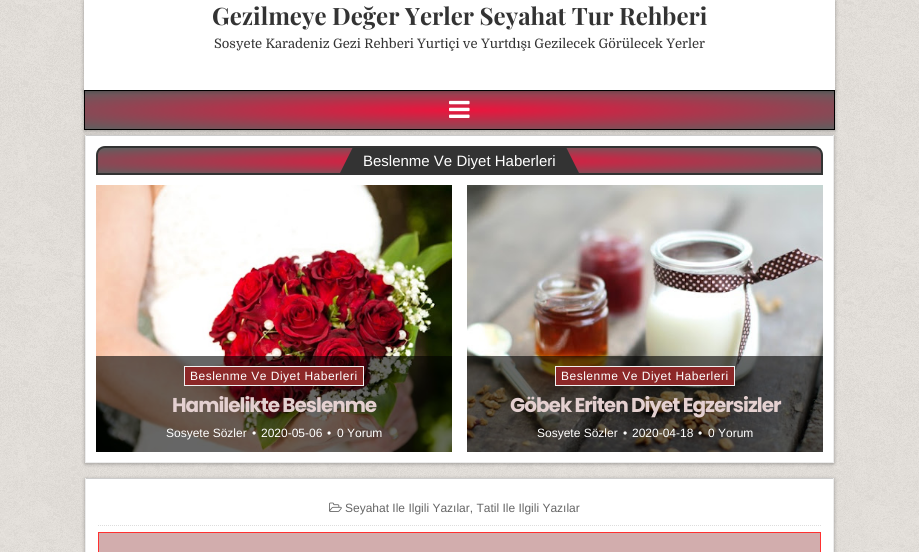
import math
import cairo

surface = cairo.ImageSurface(cairo.FORMAT_RGB24, 919, 552)
ctx = cairo.Context(surface)
options = cairo.FontOptions()
options.set_hint_metrics(cairo.HINT_METRICS_OFF)
options.set_hint_style(cairo.HINT_STYLE_NONE)
ctx.set_font_options(options)
ctx.set_miter_limit(4)


def spaced_text(x, y, s, letter, word):
    ctx.move_to(x, y)
    for ch in s:
        ctx.show_text(ch)
        ctx.rel_move_to(letter + word * (ch == ' '), 0)


def round_rect(x, y, w, h, r):
    ctx.new_sub_path()
    for i, (u, v) in enumerate([(x + w - r, y + h - r), (x + r, y + h - r), (x + r, y + r), (x + w - r, y + r)]):
        ctx.arc(u, v, r, i * math.pi / 2, (i + 1) * math.pi / 2)
    ctx.close_path()


def shadow(x, y, w, h, r, blur, alpha):
    ctx.push_group_with_content(cairo.CONTENT_ALPHA)
    ctx.set_operator(cairo.OPERATOR_SOURCE)
    for i in range(15, -16, -2):
        e = blur * i / 6
        if min(w, h) + 2 * e > 0:
            ctx.set_source_rgba(0, 0, 0, alpha * math.erfc((i - 1) / 8.5) / 2)
            round_rect(x - e, y - e, w + 2 * e, h + 2 * e, max(0, min(r + e + blur * .6, min(w, h) / 2 + e)))
            ctx.fill()
    ctx.mask(ctx.pop_group())


def picture(path, x, y, w, h):
    ctx.save()
    ctx.set_source_surface(cairo.ImageSurface.create_from_png(path), x, y)
    ctx.rectangle(x, y, w, h)
    ctx.fill()
    ctx.restore()


ctx.set_source_rgb(1, 1, 1)
ctx.paint()
picture("img1.png", 0, 0, 919, 552)
ctx.set_source_rgb(0, 0, 0)
shadow(84, 91, 751, 40, 0, 2, 0.3)
gradient = cairo.RadialGradient(0, 0, 0, 0, 0, 1)
gradient.set_matrix(cairo.Matrix(1 / 530, 0, 0, 1 / 27, -1 * 460 / 530, -1 * 110 / 27))
gradient.add_color_stop_rgba(0, 0.929, 0.078, 0.239, 1)
gradient.add_color_stop_rgba(1, 0.373, 0.373, 0.373, 1)
ctx.set_source(gradient)
ctx.rectangle(85, 91, 749, 38)
ctx.fill()
ctx.rectangle(84.5, 90.5, 750, 39)
ctx.set_source_rgb(0, 0, 0)
ctx.set_line_width(1)
ctx.stroke()
ctx.set_source_rgb(0, 0, 0)
shadow(84, 1, 751, 90, 0, 2, 0.3)
ctx.set_source_rgb(1, 1, 1)
ctx.rectangle(84, 0, 751, 90)
ctx.fill()
ctx.select_font_face("Playfair Display", cairo.FONT_SLANT_NORMAL, cairo.FONT_WEIGHT_BOLD)
ctx.set_font_size(24)
ctx.set_source_rgb(0.2, 0.2, 0.2)
ctx.move_to(212, 25)
ctx.show_text("Gezilmeye Değer Yerler Seyahat Tur Rehberi")
ctx.select_font_face("Domine")
ctx.set_font_size(13)
ctx.move_to(214, 48)
ctx.show_text("Sosyete Karadeniz Gezi Rehberi Yurtiçi ve Yurtdışı Gezilecek Görülecek Yerler")
picture("img2.png", 449, 100, 21, 18)
ctx.set_source_rgb(0, 0, 0)
shadow(85, 136, 749, 328, 0, 2, 0.3)
ctx.set_source_rgb(1, 1, 1)
ctx.rectangle(86, 136, 747, 326)
ctx.fill()
ctx.set_source_rgb(0.8, 0.8, 0.8)
ctx.rectangle(85, 135, 749, 1)
ctx.fill()
ctx.set_source_rgb(0.925, 0.925, 0.925)
ctx.rectangle(833, 135, 1, 328)
ctx.fill()
ctx.rectangle(85, 462, 749, 1)
ctx.fill()
ctx.rectangle(85, 135, 1, 328)
ctx.fill()
ctx.save()
ctx.new_path()
ctx.move_to(105, 146)
ctx.line_to(814, 146)
ctx.curve_to(819, 146, 823, 150, 823, 155)
ctx.line_to(823, 175)
ctx.line_to(96, 175)
ctx.line_to(96, 155)
ctx.curve_to(96, 150, 100, 146, 105, 146)
ctx.close_path()
ctx.clip()
gradient = cairo.RadialGradient(0, 0, 0, 0, 0, 1)
gradient.set_matrix(cairo.Matrix(1 / 511, 0, 0, 1 / 18, -1 * 460 / 511, -1 * 161 / 18))
gradient.add_color_stop_rgba(0, 0.929, 0.078, 0.239, 1)
gradient.add_color_stop_rgba(1, 0.373, 0.373, 0.373, 1)
ctx.set_source(gradient)
ctx.rectangle(98, 148, 723, 25)
ctx.fill()
ctx.restore()
ctx.new_path()
ctx.move_to(105, 147)
ctx.line_to(814, 147)
ctx.curve_to(818.5, 147, 822, 150.5, 822, 155)
ctx.line_to(822, 174)
ctx.line_to(97, 174)
ctx.line_to(97, 155)
ctx.curve_to(97, 150.5, 100.5, 147, 105, 147)
ctx.close_path()
ctx.set_source_rgb(0.2, 0.2, 0.2)
ctx.set_line_width(2)
ctx.stroke()
ctx.rectangle(355, 148, 209, 25)
ctx.fill()
ctx.new_path()
ctx.move_to(340, 173)
ctx.line_to(355, 173)
ctx.line_to(355, 148)
ctx.line_to(352.5, 148)
ctx.close_path()
ctx.fill()
ctx.select_font_face("Liberation Sans")
ctx.set_font_size(15)
ctx.set_source_rgb(1, 1, 1)
ctx.move_to(363, 166)
ctx.show_text("Beslenme Ve Diyet Haberleri")
ctx.set_source_rgb(0.2, 0.2, 0.2)
ctx.new_path()
ctx.move_to(564, 173)
ctx.line_to(579, 173)
ctx.line_to(566.5, 148)
ctx.line_to(564, 148)
ctx.close_path()
ctx.fill()
picture("img3.png", 96, 185, 356, 267)
ctx.set_source_rgba(0, 0, 0, 0.6)
ctx.rectangle(96, 356, 356, 96)
ctx.fill()
ctx.set_source_rgb(0.549, 0.157, 0.157)
ctx.rectangle(184.5, 366.5, 179, 19)
ctx.fill_preserve()
ctx.set_source_rgb(0.945, 0.945, 0.945)
ctx.set_line_width(1)
ctx.stroke()
ctx.set_font_size(12)
ctx.set_source_rgb(1, 1, 1)
spaced_text(190, 380, "Beslenme Ve Diyet Haberleri", 0.5, 0)
ctx.select_font_face("Poppins", cairo.FONT_SLANT_NORMAL, cairo.FONT_WEIGHT_BOLD)
ctx.set_font_size(20)
ctx.set_source_rgb(0.894, 0.816, 0.816)
spaced_text(172, 412, "Hamilelikte Beslenme", -1, 0)
ctx.select_font_face("Liberation Sans")
ctx.set_font_size(12)
ctx.set_source_rgb(1, 1, 1)
ctx.move_to(166, 437)
ctx.show_text("Sosyete Sözler")
ctx.move_to(252, 437)
ctx.show_text("•")
ctx.move_to(261, 437)
ctx.show_text("2020-05-06")
ctx.move_to(327, 437)
ctx.show_text("•")
ctx.move_to(337, 437)
ctx.show_text("0 Yorum")
picture("img4.png", 467, 185, 356, 267)
ctx.set_source_rgba(0, 0, 0, 0.6)
ctx.rectangle(467, 356, 356, 96)
ctx.fill()
ctx.set_source_rgb(0.549, 0.157, 0.157)
ctx.rectangle(555.5, 366.5, 179, 19)
ctx.fill_preserve()
ctx.set_source_rgb(0.945, 0.945, 0.945)
ctx.stroke()
ctx.set_source_rgb(1, 1, 1)
spaced_text(561, 380, "Beslenme Ve Diyet Haberleri", 0.5, 0)
ctx.select_font_face("Poppins", cairo.FONT_SLANT_NORMAL, cairo.FONT_WEIGHT_BOLD)
ctx.set_font_size(20)
ctx.set_source_rgb(0.894, 0.816, 0.816)
spaced_text(510, 412, "Göbek Eriten Diyet Egzersizler", -1, 0)
ctx.select_font_face("Liberation Sans")
ctx.set_font_size(12)
ctx.set_source_rgb(1, 1, 1)
ctx.move_to(537, 437)
ctx.show_text("Sosyete Sözler")
ctx.move_to(623, 437)
ctx.show_text("•")
ctx.move_to(632, 437)
ctx.show_text("2020-04-18")
ctx.move_to(698, 437)
ctx.show_text("•")
ctx.move_to(708, 437)
ctx.show_text("0 Yorum")
ctx.set_source_rgb(0, 0, 0)
shadow(85, 479, 749, 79, 0, 2, 0.3)
ctx.set_source_rgb(1, 1, 1)
ctx.rectangle(86, 479, 747, 73)
ctx.fill()
ctx.set_source_rgb(0.8, 0.8, 0.8)
ctx.rectangle(85, 478, 749, 1)
ctx.fill()
ctx.set_source_rgb(0.925, 0.925, 0.925)
ctx.rectangle(833, 478, 1, 74)
ctx.fill()
ctx.rectangle(85, 478, 1, 74)
ctx.fill()
ctx.new_path()
ctx.move_to(98, 525.5)
ctx.line_to(821, 525.5)
ctx.set_source_rgb(0.867, 0.867, 0.867)
ctx.set_dash([1, 1])
ctx.stroke()
picture("img5.png", 329, 502, 13, 10)
ctx.set_source_rgb(0.4, 0.4, 0.4)
ctx.move_to(345, 512)
ctx.show_text("Seyahat Ile Ilgili Yazılar, Tatil Ile Ilgili Yazılar")
ctx.set_source_rgb(0.824, 0.678, 0.678)
ctx.rectangle(98.5, 532.5, 722, 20)
ctx.fill_preserve()
ctx.set_source_rgb(1, 0.188, 0.188)
ctx.set_dash([])
ctx.stroke()
surface.write_to_png("page.png")
